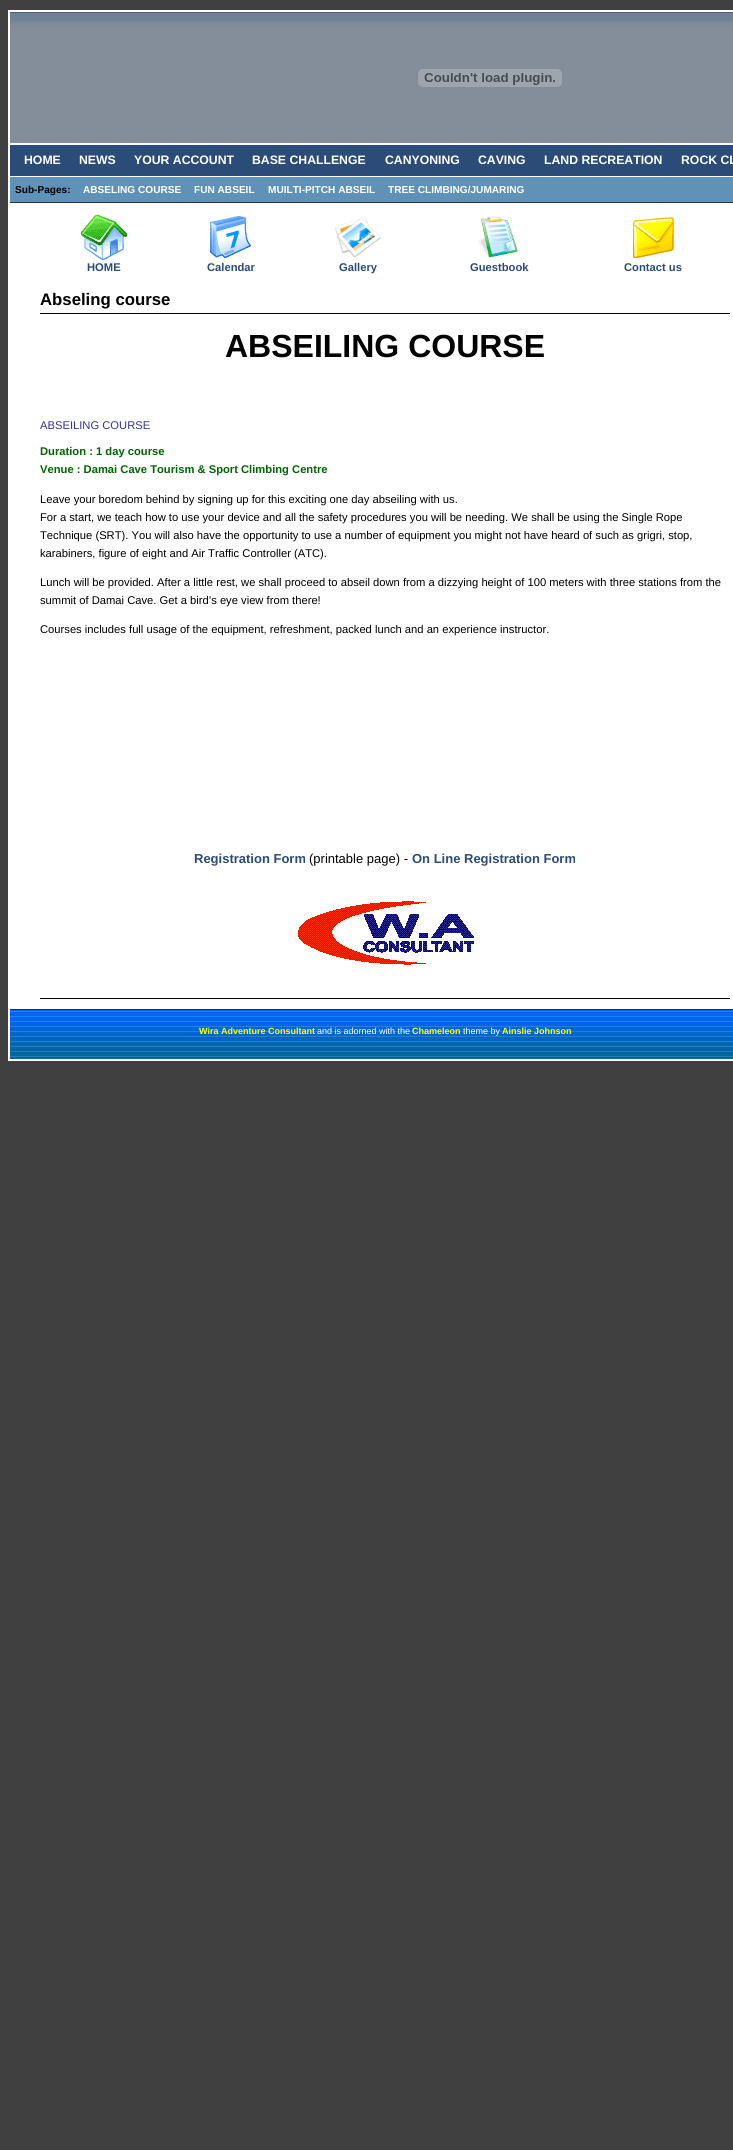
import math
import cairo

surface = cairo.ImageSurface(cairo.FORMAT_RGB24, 733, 2150)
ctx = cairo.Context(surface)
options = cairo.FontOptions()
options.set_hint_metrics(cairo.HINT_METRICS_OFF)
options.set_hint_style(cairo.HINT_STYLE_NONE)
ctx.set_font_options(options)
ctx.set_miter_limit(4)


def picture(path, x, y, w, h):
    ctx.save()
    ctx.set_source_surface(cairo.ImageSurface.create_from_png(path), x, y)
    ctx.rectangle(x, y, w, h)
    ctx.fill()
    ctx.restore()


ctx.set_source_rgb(0.251, 0.251, 0.251)
ctx.paint()
ctx.set_source_rgb(1, 1, 1)
ctx.rectangle(8, 10, 725, 1051)
ctx.fill()
picture("img1.png", 10, 12, 723, 131)
picture("img2.png", 418, 69, 144, 18)
ctx.set_source_rgb(0.169, 0.294, 0.475)
ctx.rectangle(10, 145, 723, 31)
ctx.fill()
ctx.select_font_face("Liberation Sans", cairo.FONT_SLANT_NORMAL, cairo.FONT_WEIGHT_BOLD)
ctx.set_font_size(12.25)
ctx.set_source_rgb(1, 1, 1)
ctx.move_to(24, 164)
ctx.show_text("HOME")
ctx.move_to(79, 164)
ctx.show_text("NEWS")
ctx.move_to(134, 164)
ctx.show_text("YOUR ACCOUNT")
ctx.move_to(252, 164)
ctx.show_text("BASE CHALLENGE")
ctx.move_to(385, 164)
ctx.show_text("CANYONING")
ctx.move_to(478, 164)
ctx.show_text("CAVING")
ctx.move_to(544, 164)
ctx.show_text("LAND RECREATION")
ctx.move_to(681, 164)
ctx.show_text("ROCK CL")
ctx.set_source_rgb(0.376, 0.569, 0.714)
ctx.rectangle(10, 177, 723, 25)
ctx.fill()
ctx.set_source_rgb(0.2, 0.2, 0.2)
ctx.rectangle(10, 202, 723, 1)
ctx.fill()
ctx.set_font_size(10.1)
ctx.set_source_rgb(0, 0, 0)
ctx.move_to(15, 193)
ctx.show_text("Sub-Pages:")
ctx.set_source_rgb(1, 1, 1)
ctx.move_to(83, 193)
ctx.show_text("ABSELING COURSE")
ctx.move_to(194, 193)
ctx.show_text("FUN ABSEIL")
ctx.move_to(268, 193)
ctx.show_text("MUILTI-PITCH ABSEIL")
ctx.move_to(388, 193)
ctx.show_text("TREE CLIMBING/JUMARING")
ctx.set_source_rgb(0, 0, 0)
ctx.rectangle(40, 998, 690, 1)
ctx.fill()
picture("img3.png", 80, 214, 47, 46)
picture("img4.png", 210, 216, 41, 42)
picture("img5.png", 335, 217, 46, 41)
picture("img6.png", 478, 217, 40, 41)
picture("img7.png", 633, 217, 41, 41)
ctx.set_font_size(11.2)
ctx.set_source_rgb(0.169, 0.294, 0.475)
ctx.move_to(87, 271)
ctx.show_text("HOME")
ctx.move_to(207, 271)
ctx.show_text("Calendar")
ctx.move_to(339, 271)
ctx.show_text("Gallery")
ctx.move_to(470, 271)
ctx.show_text("Guestbook")
ctx.move_to(624, 271)
ctx.show_text("Contact us")
ctx.set_source_rgb(0, 0, 0)
ctx.rectangle(40, 313, 690, 1)
ctx.fill()
ctx.set_font_size(16.75)
ctx.move_to(40, 305)
ctx.show_text("Abseling course")
ctx.set_font_size(32)
ctx.move_to(225, 357)
ctx.show_text("ABSEILING COURSE")
ctx.select_font_face("Liberation Sans")
ctx.set_font_size(11.2)
ctx.set_source_rgb(0.2, 0.2, 0.6)
ctx.move_to(40, 429)
ctx.show_text("ABSEILING COURSE")
ctx.select_font_face("Liberation Sans", cairo.FONT_SLANT_NORMAL, cairo.FONT_WEIGHT_BOLD)
ctx.set_source_rgb(0, 0.4, 0)
ctx.move_to(40, 455)
ctx.show_text("Duration : 1 day course")
ctx.move_to(40, 473)
ctx.show_text("Venue : Damai Cave Tourism & Sport Climbing Centre")
ctx.select_font_face("Liberation Sans")
ctx.set_source_rgb(0, 0, 0)
ctx.move_to(40, 503)
ctx.show_text("Leave your boredom behind by signing up for this exciting one day abseiling with us.")
ctx.move_to(40, 521)
ctx.show_text("For a start, we teach how to use your device and all the safety procedures you will be needing. We shall be using the Single Rope")
ctx.move_to(40, 539)
ctx.show_text("Technique (SRT). You will also have the opportunity to use a number of equipment you might not have heard of such as grigri, stop,")
ctx.move_to(40, 557)
ctx.show_text("karabiners, figure of eight and Air Traffic Controller (ATC).")
ctx.move_to(40, 586)
ctx.show_text("Lunch will be provided. After a little rest, we shall proceed to abseil down from a dizzying height of 100 meters with three stations from the")
ctx.move_to(40, 604)
ctx.show_text("summit of Damai Cave. Get a bird’s eye view from there!")
ctx.move_to(40, 633)
ctx.show_text("Courses includes full usage of the equipment, refreshment, packed lunch and an experience instructor.")
ctx.select_font_face("Liberation Sans", cairo.FONT_SLANT_NORMAL, cairo.FONT_WEIGHT_BOLD)
ctx.set_font_size(13)
ctx.set_source_rgb(0.169, 0.294, 0.475)
ctx.move_to(194, 863)
ctx.show_text("Registration Form")
ctx.select_font_face("Liberation Sans")
ctx.set_source_rgb(0, 0, 0)
ctx.move_to(309, 863)
ctx.show_text("(printable page) -")
ctx.select_font_face("Liberation Sans", cairo.FONT_SLANT_NORMAL, cairo.FONT_WEIGHT_BOLD)
ctx.set_source_rgb(0.169, 0.294, 0.475)
ctx.move_to(412, 863)
ctx.show_text("On Line Registration Form")
picture("img8.png", 298, 901, 176, 64)
picture("img9.png", 10, 1009, 723, 50)
ctx.set_font_size(9)
ctx.set_source_rgb(1, 1, 0)
ctx.move_to(199, 1034)
ctx.show_text("Wira Adventure Consultant")
ctx.select_font_face("Liberation Sans")
ctx.set_source_rgb(1, 1, 1)
ctx.move_to(317, 1034)
ctx.show_text("and is adorned with the")
ctx.select_font_face("Liberation Sans", cairo.FONT_SLANT_NORMAL, cairo.FONT_WEIGHT_BOLD)
ctx.set_source_rgb(1, 1, 0)
ctx.move_to(412, 1034)
ctx.show_text("Chameleon")
ctx.select_font_face("Liberation Sans")
ctx.set_source_rgb(1, 1, 1)
ctx.move_to(463, 1034)
ctx.show_text("theme by")
ctx.select_font_face("Liberation Sans", cairo.FONT_SLANT_NORMAL, cairo.FONT_WEIGHT_BOLD)
ctx.set_source_rgb(1, 1, 0)
ctx.move_to(502, 1034)
ctx.show_text("Ainslie Johnson")
surface.write_to_png("page.png")
